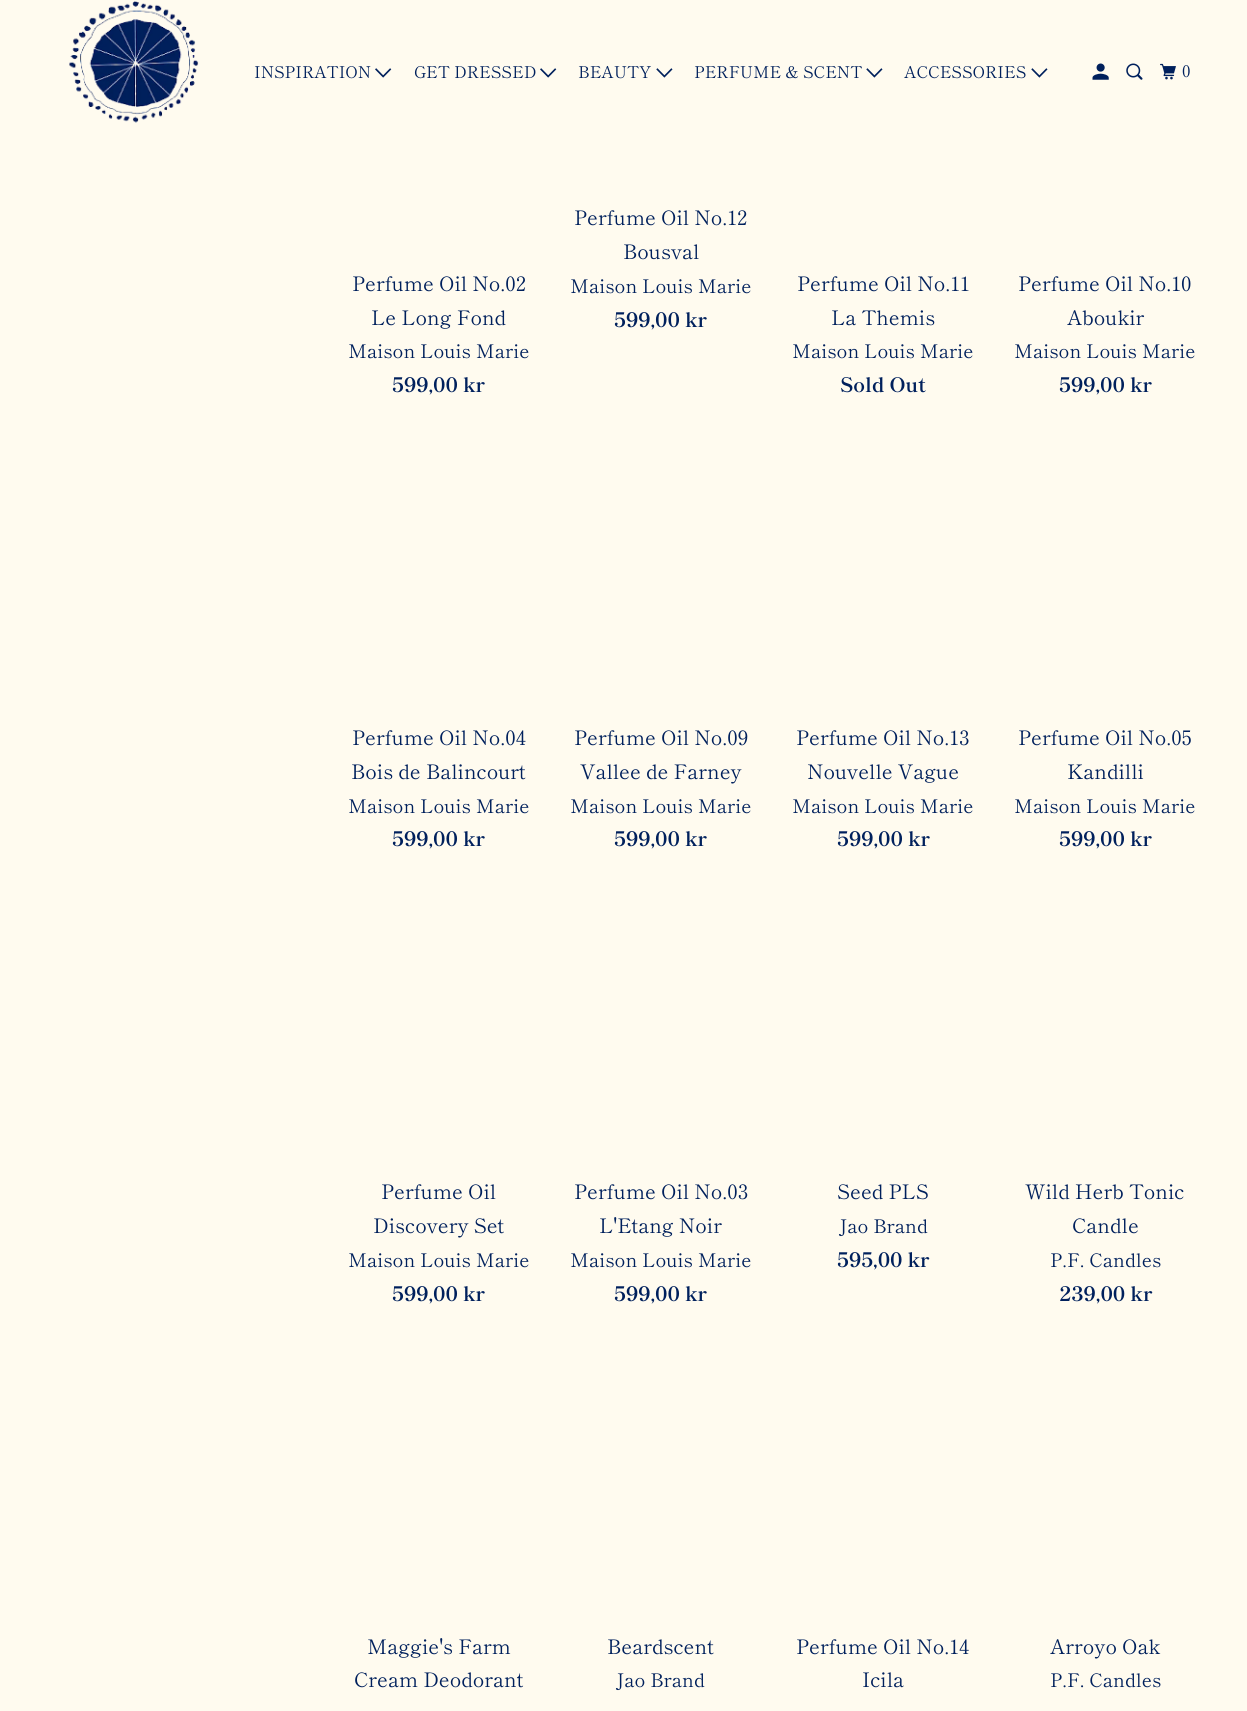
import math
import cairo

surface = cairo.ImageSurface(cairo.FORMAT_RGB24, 1247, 1711)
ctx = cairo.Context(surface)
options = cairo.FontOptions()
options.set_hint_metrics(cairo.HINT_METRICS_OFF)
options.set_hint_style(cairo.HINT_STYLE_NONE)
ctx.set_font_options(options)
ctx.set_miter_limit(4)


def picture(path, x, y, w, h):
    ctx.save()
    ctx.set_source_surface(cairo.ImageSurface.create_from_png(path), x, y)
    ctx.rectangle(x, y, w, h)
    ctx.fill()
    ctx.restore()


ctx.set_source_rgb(1, 0.984, 0.937)
ctx.paint()
picture("img1.png", 69, 1, 130, 122)
ctx.select_font_face("Shippori Mincho")
ctx.set_font_size(16.25)
ctx.set_source_rgb(0, 0.125, 0.361)
ctx.move_to(254, 78)
ctx.show_text("INSPIRATION")
picture("img2.png", 375, 68, 17, 10)
ctx.move_to(414, 78)
ctx.show_text("GET DRESSED")
picture("img2.png", 540, 68, 17, 10)
ctx.move_to(578, 78)
ctx.show_text("BEAUTY")
picture("img3.png", 656, 68, 17, 10)
ctx.move_to(694, 78)
ctx.show_text("PERFUME & SCENT")
picture("img3.png", 866, 68, 17, 10)
ctx.move_to(904, 78)
ctx.show_text("ACCESSORIES")
picture("img3.png", 1031, 68, 17, 10)
picture("img4.png", 1092, 63, 17, 17)
picture("img5.png", 1126, 63, 17, 17)
picture("img6.png", 1160, 63, 16, 17)
ctx.move_to(1182, 77)
ctx.show_text("0")
ctx.set_font_size(20)
ctx.move_to(352, 291)
ctx.show_text("Perfume Oil No.02")
ctx.move_to(371, 325)
ctx.show_text("Le Long Fond")
ctx.set_font_size(18.75)
ctx.move_to(348, 358)
ctx.show_text("Maison Louis Marie")
ctx.select_font_face("Shippori Mincho", cairo.FONT_SLANT_NORMAL, cairo.FONT_WEIGHT_BOLD)
ctx.set_font_size(20)
ctx.move_to(392, 392)
ctx.show_text("599,00 kr")
ctx.select_font_face("Shippori Mincho")
ctx.move_to(574, 225)
ctx.show_text("Perfume Oil No.12")
ctx.move_to(623, 259)
ctx.show_text("Bousval")
ctx.set_font_size(18.75)
ctx.move_to(570, 293)
ctx.show_text("Maison Louis Marie")
ctx.select_font_face("Shippori Mincho", cairo.FONT_SLANT_NORMAL, cairo.FONT_WEIGHT_BOLD)
ctx.set_font_size(20)
ctx.move_to(614, 327)
ctx.show_text("599,00 kr")
ctx.select_font_face("Shippori Mincho")
ctx.move_to(797, 291)
ctx.show_text("Perfume Oil No.11")
ctx.move_to(831, 325)
ctx.show_text("La Themis")
ctx.set_font_size(18.75)
ctx.move_to(792, 358)
ctx.show_text("Maison Louis Marie")
ctx.select_font_face("Shippori Mincho", cairo.FONT_SLANT_NORMAL, cairo.FONT_WEIGHT_BOLD)
ctx.set_font_size(20)
ctx.move_to(840, 392)
ctx.show_text("Sold Out")
ctx.select_font_face("Shippori Mincho")
ctx.move_to(1018, 291)
ctx.show_text("Perfume Oil No.10")
ctx.move_to(1067, 325)
ctx.show_text("Aboukir")
ctx.set_font_size(18.75)
ctx.move_to(1014, 358)
ctx.show_text("Maison Louis Marie")
ctx.select_font_face("Shippori Mincho", cairo.FONT_SLANT_NORMAL, cairo.FONT_WEIGHT_BOLD)
ctx.set_font_size(20)
ctx.move_to(1059, 392)
ctx.show_text("599,00 kr")
ctx.select_font_face("Shippori Mincho")
ctx.move_to(352, 745)
ctx.show_text("Perfume Oil No.04")
ctx.move_to(351, 779)
ctx.show_text("Bois de Balincourt")
ctx.set_font_size(18.75)
ctx.move_to(348, 813)
ctx.show_text("Maison Louis Marie")
ctx.select_font_face("Shippori Mincho", cairo.FONT_SLANT_NORMAL, cairo.FONT_WEIGHT_BOLD)
ctx.set_font_size(20)
ctx.move_to(392, 846)
ctx.show_text("599,00 kr")
ctx.select_font_face("Shippori Mincho")
ctx.move_to(574, 745)
ctx.show_text("Perfume Oil No.09")
ctx.move_to(580, 779)
ctx.show_text("Vallee de Farney")
ctx.set_font_size(18.75)
ctx.move_to(570, 813)
ctx.show_text("Maison Louis Marie")
ctx.select_font_face("Shippori Mincho", cairo.FONT_SLANT_NORMAL, cairo.FONT_WEIGHT_BOLD)
ctx.set_font_size(20)
ctx.move_to(614, 846)
ctx.show_text("599,00 kr")
ctx.select_font_face("Shippori Mincho")
ctx.move_to(796, 745)
ctx.show_text("Perfume Oil No.13")
ctx.move_to(807, 779)
ctx.show_text("Nouvelle Vague")
ctx.set_font_size(18.75)
ctx.move_to(792, 813)
ctx.show_text("Maison Louis Marie")
ctx.select_font_face("Shippori Mincho", cairo.FONT_SLANT_NORMAL, cairo.FONT_WEIGHT_BOLD)
ctx.set_font_size(20)
ctx.move_to(837, 846)
ctx.show_text("599,00 kr")
ctx.select_font_face("Shippori Mincho")
ctx.move_to(1018, 745)
ctx.show_text("Perfume Oil No.05")
ctx.move_to(1067, 779)
ctx.show_text("Kandilli")
ctx.set_font_size(18.75)
ctx.move_to(1014, 813)
ctx.show_text("Maison Louis Marie")
ctx.select_font_face("Shippori Mincho", cairo.FONT_SLANT_NORMAL, cairo.FONT_WEIGHT_BOLD)
ctx.set_font_size(20)
ctx.move_to(1059, 846)
ctx.show_text("599,00 kr")
ctx.select_font_face("Shippori Mincho")
ctx.move_to(381, 1199)
ctx.show_text("Perfume Oil")
ctx.move_to(373, 1233)
ctx.show_text("Discovery Set")
ctx.set_font_size(18.75)
ctx.move_to(348, 1267)
ctx.show_text("Maison Louis Marie")
ctx.select_font_face("Shippori Mincho", cairo.FONT_SLANT_NORMAL, cairo.FONT_WEIGHT_BOLD)
ctx.set_font_size(20)
ctx.move_to(392, 1301)
ctx.show_text("599,00 kr")
ctx.select_font_face("Shippori Mincho")
ctx.move_to(574, 1199)
ctx.show_text("Perfume Oil No.03")
ctx.move_to(599, 1233)
ctx.show_text("L'Etang Noir")
ctx.set_font_size(18.75)
ctx.move_to(570, 1267)
ctx.show_text("Maison Louis Marie")
ctx.select_font_face("Shippori Mincho", cairo.FONT_SLANT_NORMAL, cairo.FONT_WEIGHT_BOLD)
ctx.set_font_size(20)
ctx.move_to(614, 1301)
ctx.show_text("599,00 kr")
ctx.select_font_face("Shippori Mincho")
ctx.move_to(837, 1199)
ctx.show_text("Seed PLS")
ctx.set_font_size(18.75)
ctx.move_to(839, 1233)
ctx.show_text("Jao Brand")
ctx.select_font_face("Shippori Mincho", cairo.FONT_SLANT_NORMAL, cairo.FONT_WEIGHT_BOLD)
ctx.set_font_size(20)
ctx.move_to(837, 1267)
ctx.show_text("595,00 kr")
ctx.select_font_face("Shippori Mincho")
ctx.move_to(1025, 1199)
ctx.show_text("Wild Herb Tonic")
ctx.move_to(1072, 1233)
ctx.show_text("Candle")
ctx.set_font_size(18.75)
ctx.move_to(1050, 1267)
ctx.show_text("P.F. Candles")
ctx.select_font_face("Shippori Mincho", cairo.FONT_SLANT_NORMAL, cairo.FONT_WEIGHT_BOLD)
ctx.set_font_size(20)
ctx.move_to(1059, 1301)
ctx.show_text("239,00 kr")
ctx.select_font_face("Shippori Mincho")
ctx.move_to(367, 1654)
ctx.show_text("Maggie's Farm")
ctx.move_to(354, 1687)
ctx.show_text("Cream Deodorant")
ctx.move_to(607, 1654)
ctx.show_text("Beardscent")
ctx.set_font_size(18.75)
ctx.move_to(616, 1687)
ctx.show_text("Jao Brand")
ctx.set_font_size(20)
ctx.move_to(796, 1654)
ctx.show_text("Perfume Oil No.14")
ctx.move_to(862, 1687)
ctx.show_text("Icila")
ctx.move_to(1050, 1654)
ctx.show_text("Arroyo Oak")
ctx.set_font_size(18.75)
ctx.move_to(1050, 1687)
ctx.show_text("P.F. Candles")
surface.write_to_png("page.png")
